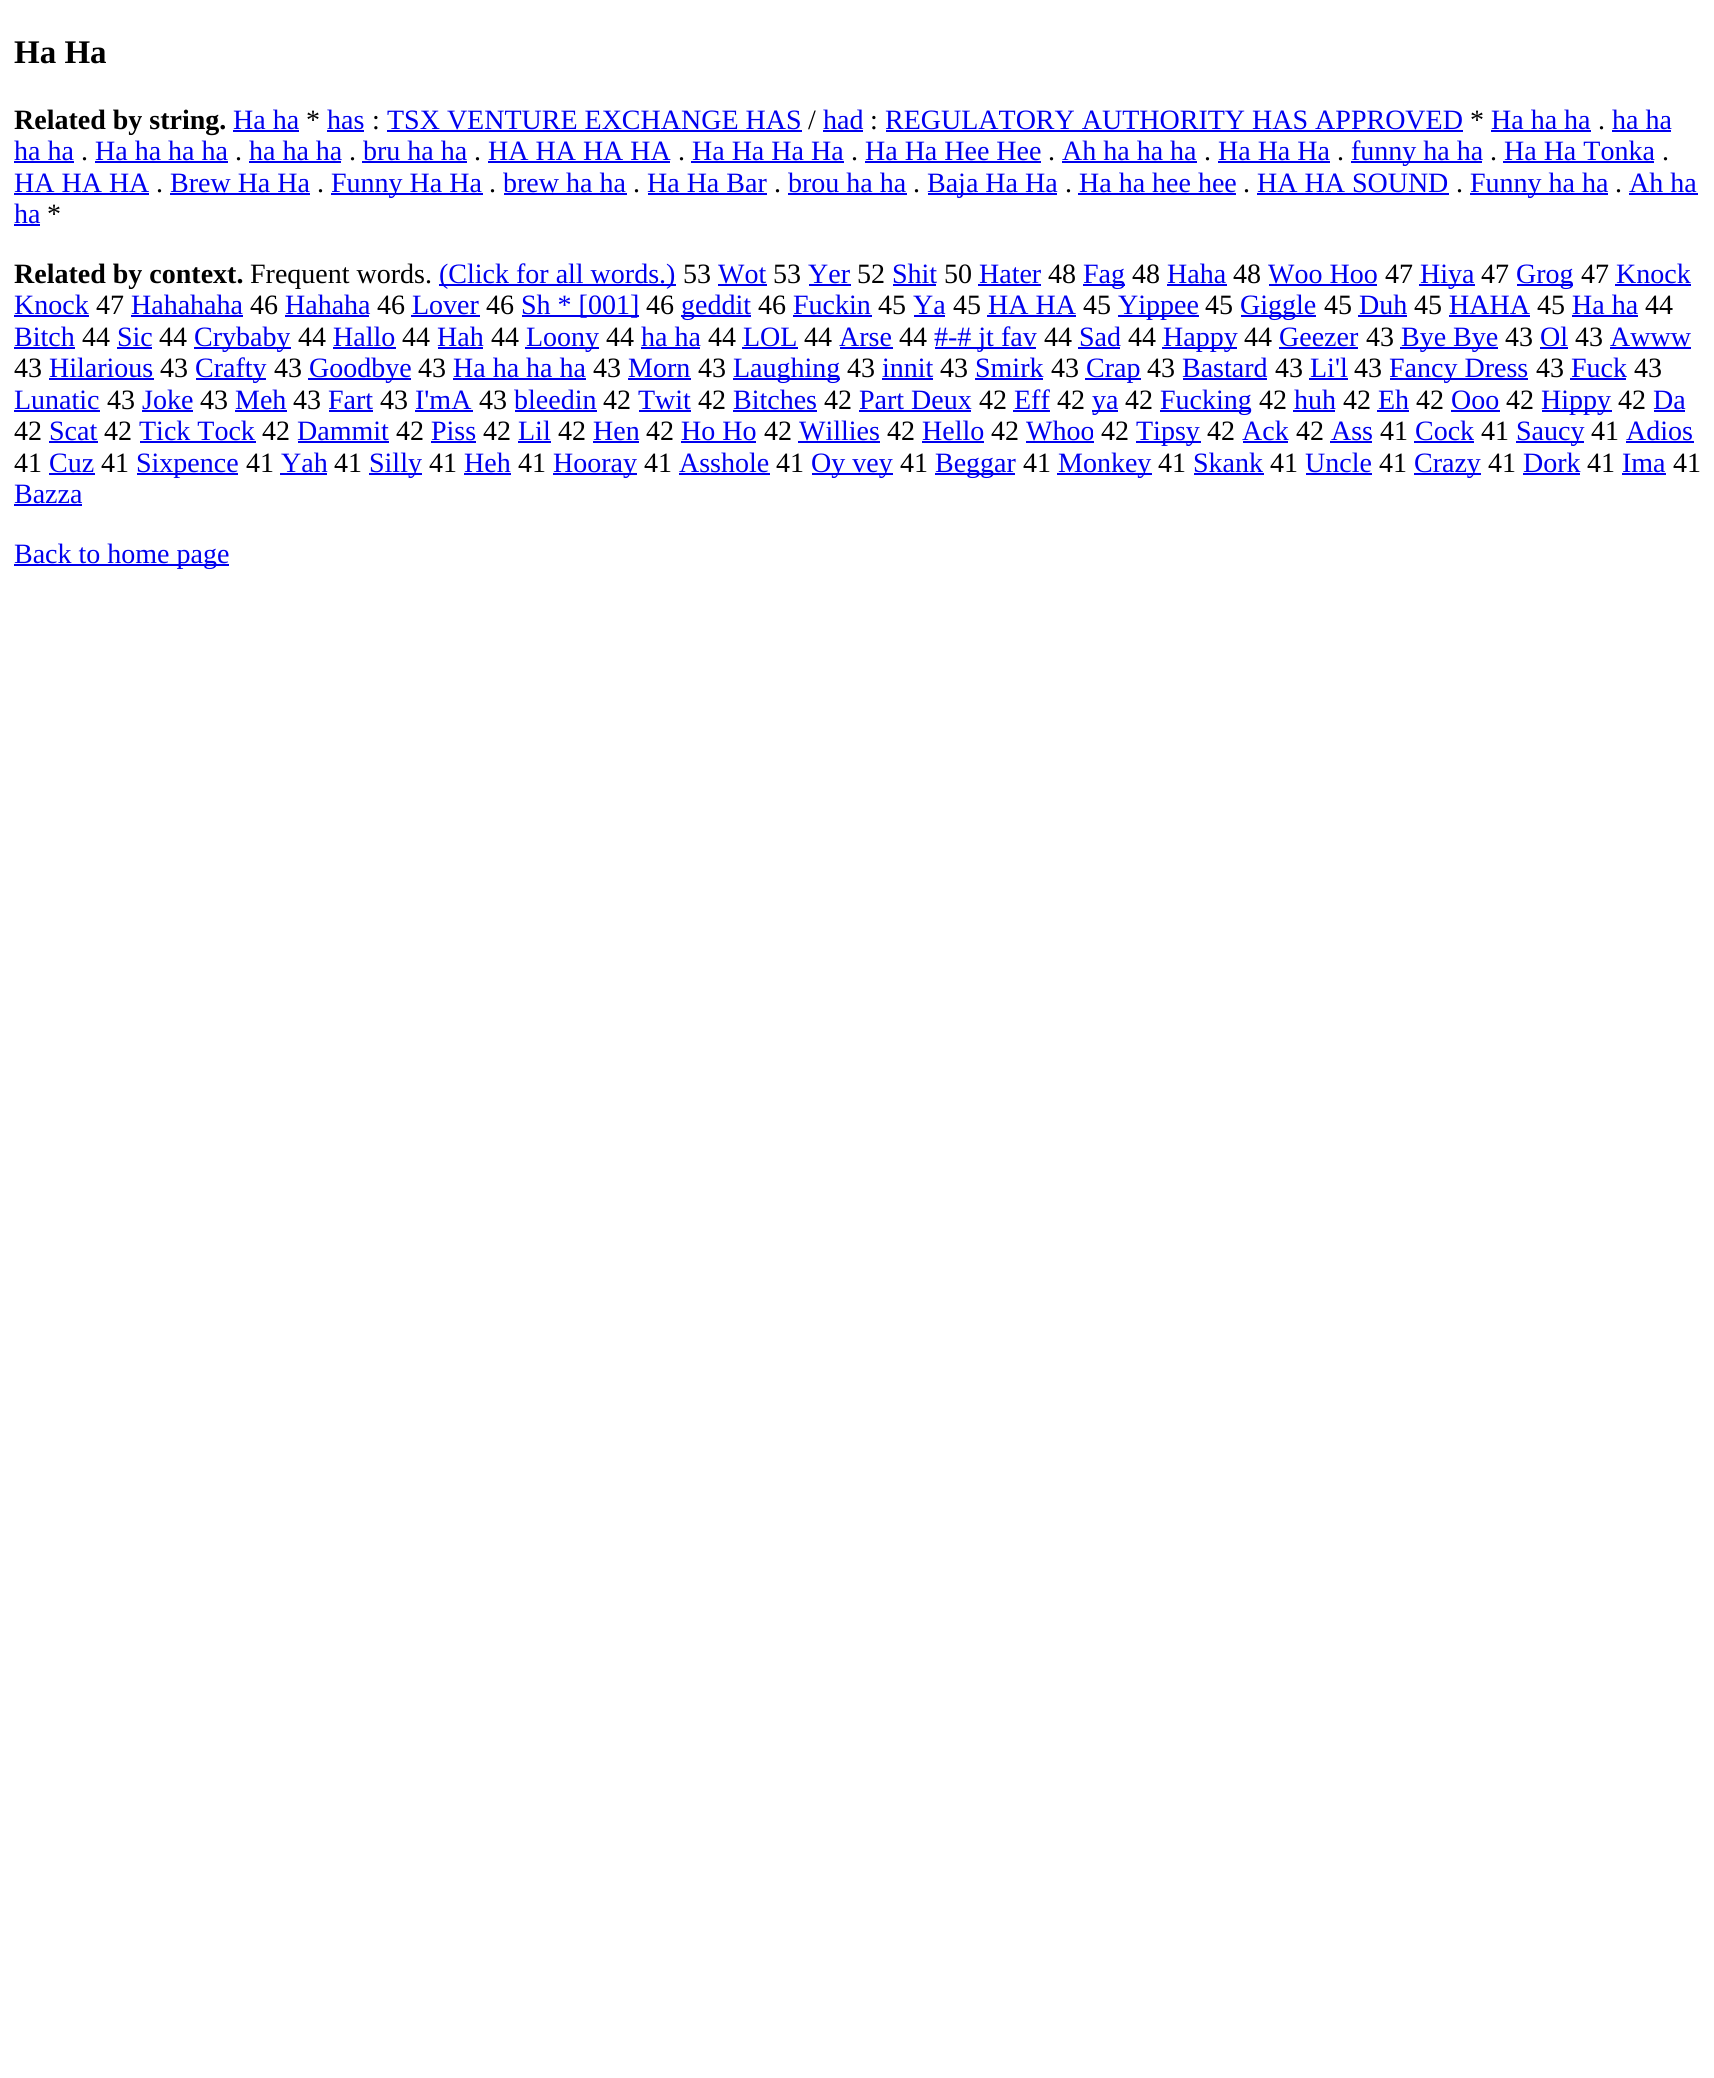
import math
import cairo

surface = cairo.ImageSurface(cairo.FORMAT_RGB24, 1714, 2078)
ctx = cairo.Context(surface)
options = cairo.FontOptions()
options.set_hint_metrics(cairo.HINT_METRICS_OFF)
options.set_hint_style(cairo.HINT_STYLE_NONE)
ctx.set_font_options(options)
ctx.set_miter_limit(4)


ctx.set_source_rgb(1, 1, 1)
ctx.paint()
ctx.select_font_face("Liberation Serif", cairo.FONT_SLANT_NORMAL, cairo.FONT_WEIGHT_BOLD)
ctx.set_font_size(33)
ctx.set_source_rgb(0, 0, 0)
ctx.move_to(14, 63)
ctx.show_text("Ha Ha")
ctx.set_font_size(28)
ctx.move_to(14, 129)
ctx.show_text("Related by string.")
ctx.select_font_face("Liberation Serif")
ctx.set_source_rgb(0, 0, 0.933)
ctx.move_to(233, 129)
ctx.show_text("Ha ha")
ctx.rectangle(233, 130, 66, 2)
ctx.fill()
ctx.set_source_rgb(0, 0, 0)
ctx.move_to(306, 129)
ctx.show_text("*")
ctx.set_source_rgb(0, 0, 0.933)
ctx.move_to(327, 129)
ctx.show_text("has")
ctx.rectangle(327, 130, 37, 2)
ctx.fill()
ctx.set_source_rgb(0, 0, 0)
ctx.move_to(372, 129)
ctx.show_text(":")
ctx.set_source_rgb(0, 0, 0.933)
ctx.move_to(387, 129)
ctx.show_text("TSX VENTURE EXCHANGE HAS")
ctx.rectangle(387, 130, 415, 2)
ctx.fill()
ctx.set_source_rgb(0, 0, 0)
ctx.move_to(808, 129)
ctx.show_text("/")
ctx.set_source_rgb(0, 0, 0.933)
ctx.move_to(823, 129)
ctx.show_text("had")
ctx.rectangle(823, 130, 40, 2)
ctx.fill()
ctx.set_source_rgb(0, 0, 0)
ctx.move_to(870, 129)
ctx.show_text(":")
ctx.set_source_rgb(0, 0, 0.933)
ctx.move_to(885, 129)
ctx.show_text("REGULATORY AUTHORITY HAS APPROVED")
ctx.rectangle(886, 130, 577, 2)
ctx.fill()
ctx.set_source_rgb(0, 0, 0)
ctx.move_to(1470, 129)
ctx.show_text("*")
ctx.set_source_rgb(0, 0, 0.933)
ctx.move_to(1491, 129)
ctx.show_text("Ha ha ha")
ctx.rectangle(1491, 130, 100, 2)
ctx.fill()
ctx.set_source_rgb(0, 0, 0)
ctx.move_to(1598, 129)
ctx.show_text(".")
ctx.set_source_rgb(0, 0, 0.933)
ctx.move_to(1612, 129)
ctx.show_text("ha ha")
ctx.rectangle(1612, 130, 59, 2)
ctx.fill()
ctx.move_to(14, 160)
ctx.show_text("ha ha")
ctx.rectangle(14, 161, 60, 2)
ctx.fill()
ctx.set_source_rgb(0, 0, 0)
ctx.move_to(81, 160)
ctx.show_text(".")
ctx.set_source_rgb(0, 0, 0.933)
ctx.move_to(95, 160)
ctx.show_text("Ha ha ha ha")
ctx.rectangle(95, 161, 133, 2)
ctx.fill()
ctx.set_source_rgb(0, 0, 0)
ctx.move_to(235, 160)
ctx.show_text(".")
ctx.set_source_rgb(0, 0, 0.933)
ctx.move_to(249, 160)
ctx.show_text("ha ha ha")
ctx.rectangle(249, 161, 92, 2)
ctx.fill()
ctx.set_source_rgb(0, 0, 0)
ctx.move_to(349, 160)
ctx.show_text(".")
ctx.set_source_rgb(0, 0, 0.933)
ctx.move_to(363, 160)
ctx.show_text("bru ha ha")
ctx.rectangle(362, 161, 105, 2)
ctx.fill()
ctx.set_source_rgb(0, 0, 0)
ctx.move_to(474, 160)
ctx.show_text(".")
ctx.set_source_rgb(0, 0, 0.933)
ctx.move_to(488, 160)
ctx.show_text("HA HA HA HA")
ctx.rectangle(488, 161, 182, 2)
ctx.fill()
ctx.set_source_rgb(0, 0, 0)
ctx.move_to(678, 160)
ctx.show_text(".")
ctx.set_source_rgb(0, 0, 0.933)
ctx.move_to(692, 160)
ctx.show_text("Ha Ha Ha Ha")
ctx.rectangle(691, 161, 153, 2)
ctx.fill()
ctx.set_source_rgb(0, 0, 0)
ctx.move_to(851, 160)
ctx.show_text(".")
ctx.set_source_rgb(0, 0, 0.933)
ctx.move_to(865, 160)
ctx.show_text("Ha Ha Hee Hee")
ctx.rectangle(865, 161, 176, 2)
ctx.fill()
ctx.set_source_rgb(0, 0, 0)
ctx.move_to(1048, 160)
ctx.show_text(".")
ctx.set_source_rgb(0, 0, 0.933)
ctx.move_to(1062, 160)
ctx.show_text("Ah ha ha ha")
ctx.rectangle(1062, 161, 135, 2)
ctx.fill()
ctx.set_source_rgb(0, 0, 0)
ctx.move_to(1204, 160)
ctx.show_text(".")
ctx.set_source_rgb(0, 0, 0.933)
ctx.move_to(1218, 160)
ctx.show_text("Ha Ha Ha")
ctx.rectangle(1218, 161, 112, 2)
ctx.fill()
ctx.set_source_rgb(0, 0, 0)
ctx.move_to(1337, 160)
ctx.show_text(".")
ctx.set_source_rgb(0, 0, 0.933)
ctx.rectangle(1351, 161, 131, 2)
ctx.fill()
ctx.move_to(1351, 160)
ctx.show_text("funny ha ha")
ctx.set_source_rgb(0, 0, 0)
ctx.move_to(1490, 160)
ctx.show_text(".")
ctx.set_source_rgb(0, 0, 0.933)
ctx.move_to(1504, 160)
ctx.show_text("Ha Ha Tonka")
ctx.rectangle(1503, 161, 151, 2)
ctx.fill()
ctx.set_source_rgb(0, 0, 0)
ctx.move_to(1662, 160)
ctx.show_text(".")
ctx.set_source_rgb(0, 0, 0.933)
ctx.move_to(14, 192)
ctx.show_text("HA HA HA")
ctx.rectangle(14, 193, 135, 2)
ctx.fill()
ctx.set_source_rgb(0, 0, 0)
ctx.move_to(156, 192)
ctx.show_text(".")
ctx.set_source_rgb(0, 0, 0.933)
ctx.move_to(170, 192)
ctx.show_text("Brew Ha Ha")
ctx.rectangle(170, 193, 140, 2)
ctx.fill()
ctx.set_source_rgb(0, 0, 0)
ctx.move_to(317, 192)
ctx.show_text(".")
ctx.set_source_rgb(0, 0, 0.933)
ctx.rectangle(331, 193, 152, 2)
ctx.fill()
ctx.move_to(331, 192)
ctx.show_text("Funny Ha Ha")
ctx.set_source_rgb(0, 0, 0)
ctx.move_to(489, 192)
ctx.show_text(".")
ctx.set_source_rgb(0, 0, 0.933)
ctx.move_to(503, 192)
ctx.show_text("brew ha ha")
ctx.rectangle(504, 193, 123, 2)
ctx.fill()
ctx.set_source_rgb(0, 0, 0)
ctx.move_to(633, 192)
ctx.show_text(".")
ctx.set_source_rgb(0, 0, 0.933)
ctx.move_to(647, 192)
ctx.show_text("Ha Ha Bar")
ctx.rectangle(648, 193, 119, 2)
ctx.fill()
ctx.set_source_rgb(0, 0, 0)
ctx.move_to(774, 192)
ctx.show_text(".")
ctx.set_source_rgb(0, 0, 0.933)
ctx.move_to(788, 192)
ctx.show_text("brou ha ha")
ctx.rectangle(788, 193, 119, 2)
ctx.fill()
ctx.set_source_rgb(0, 0, 0)
ctx.move_to(913, 192)
ctx.show_text(".")
ctx.set_source_rgb(0, 0, 0.933)
ctx.rectangle(928, 193, 129, 2)
ctx.fill()
ctx.move_to(927, 192)
ctx.show_text("Baja Ha Ha")
ctx.set_source_rgb(0, 0, 0)
ctx.move_to(1065, 192)
ctx.show_text(".")
ctx.set_source_rgb(0, 0, 0.933)
ctx.move_to(1079, 192)
ctx.show_text("Ha ha hee hee")
ctx.rectangle(1078, 193, 158, 2)
ctx.fill()
ctx.set_source_rgb(0, 0, 0)
ctx.move_to(1243, 192)
ctx.show_text(".")
ctx.set_source_rgb(0, 0, 0.933)
ctx.move_to(1257, 192)
ctx.show_text("HA HA SOUND")
ctx.rectangle(1257, 193, 192, 2)
ctx.fill()
ctx.set_source_rgb(0, 0, 0)
ctx.move_to(1456, 192)
ctx.show_text(".")
ctx.set_source_rgb(0, 0, 0.933)
ctx.rectangle(1470, 193, 138, 2)
ctx.fill()
ctx.move_to(1470, 192)
ctx.show_text("Funny ha ha")
ctx.set_source_rgb(0, 0, 0)
ctx.move_to(1615, 192)
ctx.show_text(".")
ctx.set_source_rgb(0, 0, 0.933)
ctx.move_to(1629, 192)
ctx.show_text("Ah ha")
ctx.rectangle(1629, 193, 69, 2)
ctx.fill()
ctx.move_to(14, 223)
ctx.show_text("ha")
ctx.rectangle(14, 224, 26, 2)
ctx.fill()
ctx.set_source_rgb(0, 0, 0)
ctx.move_to(47, 223)
ctx.show_text("*")
ctx.select_font_face("Liberation Serif", cairo.FONT_SLANT_NORMAL, cairo.FONT_WEIGHT_BOLD)
ctx.move_to(14, 283)
ctx.show_text("Related by context.")
ctx.select_font_face("Liberation Serif")
ctx.move_to(250, 283)
ctx.show_text("Frequent words.")
ctx.set_source_rgb(0, 0, 0.933)
ctx.rectangle(439, 284, 237, 2)
ctx.fill()
ctx.move_to(439, 283)
ctx.show_text("(Click for all words.)")
ctx.set_source_rgb(0, 0, 0)
ctx.move_to(683, 283)
ctx.show_text("53")
ctx.set_source_rgb(0, 0, 0.933)
ctx.move_to(718, 283)
ctx.show_text("Wot")
ctx.rectangle(718, 284, 49, 2)
ctx.fill()
ctx.set_source_rgb(0, 0, 0)
ctx.move_to(773, 283)
ctx.show_text("53")
ctx.set_source_rgb(0, 0, 0.933)
ctx.move_to(808, 283)
ctx.show_text("Yer")
ctx.rectangle(809, 284, 42, 2)
ctx.fill()
ctx.set_source_rgb(0, 0, 0)
ctx.move_to(857, 283)
ctx.show_text("52")
ctx.set_source_rgb(0, 0, 0.933)
ctx.move_to(892, 283)
ctx.show_text("Shit")
ctx.rectangle(893, 284, 43, 2)
ctx.fill()
ctx.set_source_rgb(0, 0, 0)
ctx.move_to(944, 283)
ctx.show_text("50")
ctx.set_source_rgb(0, 0, 0.933)
ctx.move_to(979, 283)
ctx.show_text("Hater")
ctx.rectangle(978, 284, 63, 2)
ctx.fill()
ctx.set_source_rgb(0, 0, 0)
ctx.move_to(1048, 283)
ctx.show_text("48")
ctx.set_source_rgb(0, 0, 0.933)
ctx.rectangle(1083, 284, 42, 2)
ctx.fill()
ctx.move_to(1083, 283)
ctx.show_text("Fag")
ctx.set_source_rgb(0, 0, 0)
ctx.move_to(1132, 283)
ctx.show_text("48")
ctx.set_source_rgb(0, 0, 0.933)
ctx.move_to(1167, 283)
ctx.show_text("Haha")
ctx.rectangle(1167, 284, 60, 2)
ctx.fill()
ctx.set_source_rgb(0, 0, 0)
ctx.move_to(1233, 283)
ctx.show_text("48")
ctx.set_source_rgb(0, 0, 0.933)
ctx.move_to(1268, 283)
ctx.show_text("Woo Hoo")
ctx.rectangle(1269, 284, 108, 2)
ctx.fill()
ctx.set_source_rgb(0, 0, 0)
ctx.move_to(1385, 283)
ctx.show_text("47")
ctx.set_source_rgb(0, 0, 0.933)
ctx.rectangle(1419, 284, 56, 2)
ctx.fill()
ctx.move_to(1420, 283)
ctx.show_text("Hiya")
ctx.set_source_rgb(0, 0, 0)
ctx.move_to(1481, 283)
ctx.show_text("47")
ctx.set_source_rgb(0, 0, 0.933)
ctx.rectangle(1517, 284, 56, 2)
ctx.fill()
ctx.move_to(1516, 283)
ctx.show_text("Grog")
ctx.set_source_rgb(0, 0, 0)
ctx.move_to(1581, 283)
ctx.show_text("47")
ctx.set_source_rgb(0, 0, 0.933)
ctx.move_to(1616, 283)
ctx.show_text("Knock")
ctx.rectangle(1615, 284, 76, 2)
ctx.fill()
ctx.move_to(14, 314)
ctx.show_text("Knock")
ctx.rectangle(14, 315, 75, 2)
ctx.fill()
ctx.set_source_rgb(0, 0, 0)
ctx.move_to(96, 314)
ctx.show_text("47")
ctx.set_source_rgb(0, 0, 0.933)
ctx.move_to(131, 314)
ctx.show_text("Hahahaha")
ctx.rectangle(131, 315, 112, 2)
ctx.fill()
ctx.set_source_rgb(0, 0, 0)
ctx.move_to(250, 314)
ctx.show_text("46")
ctx.set_source_rgb(0, 0, 0.933)
ctx.move_to(285, 314)
ctx.show_text("Hahaha")
ctx.rectangle(285, 315, 84, 2)
ctx.fill()
ctx.set_source_rgb(0, 0, 0)
ctx.move_to(377, 314)
ctx.show_text("46")
ctx.set_source_rgb(0, 0, 0.933)
ctx.move_to(412, 314)
ctx.show_text("Lover")
ctx.rectangle(411, 315, 69, 2)
ctx.fill()
ctx.set_source_rgb(0, 0, 0)
ctx.move_to(486, 314)
ctx.show_text("46")
ctx.set_source_rgb(0, 0, 0.933)
ctx.rectangle(522, 315, 117, 2)
ctx.fill()
ctx.move_to(521, 314)
ctx.show_text("Sh * [001]")
ctx.set_source_rgb(0, 0, 0)
ctx.move_to(646, 314)
ctx.show_text("46")
ctx.set_source_rgb(0, 0, 0.933)
ctx.rectangle(681, 315, 70, 2)
ctx.fill()
ctx.move_to(681, 314)
ctx.show_text("geddit")
ctx.set_source_rgb(0, 0, 0)
ctx.move_to(758, 314)
ctx.show_text("46")
ctx.set_source_rgb(0, 0, 0.933)
ctx.move_to(793, 314)
ctx.show_text("Fuckin")
ctx.rectangle(793, 315, 79, 2)
ctx.fill()
ctx.set_source_rgb(0, 0, 0)
ctx.move_to(878, 314)
ctx.show_text("45")
ctx.set_source_rgb(0, 0, 0.933)
ctx.move_to(913, 314)
ctx.show_text("Ya")
ctx.rectangle(914, 315, 31, 2)
ctx.fill()
ctx.set_source_rgb(0, 0, 0)
ctx.move_to(953, 314)
ctx.show_text("45")
ctx.set_source_rgb(0, 0, 0.933)
ctx.move_to(988, 314)
ctx.show_text("HA HA")
ctx.rectangle(987, 315, 89, 2)
ctx.fill()
ctx.set_source_rgb(0, 0, 0)
ctx.move_to(1083, 314)
ctx.show_text("45")
ctx.set_source_rgb(0, 0, 0.933)
ctx.rectangle(1118, 315, 81, 2)
ctx.fill()
ctx.move_to(1118, 314)
ctx.show_text("Yippee")
ctx.set_source_rgb(0, 0, 0)
ctx.move_to(1205, 314)
ctx.show_text("45")
ctx.set_source_rgb(0, 0, 0.933)
ctx.rectangle(1241, 315, 75, 2)
ctx.fill()
ctx.move_to(1240, 314)
ctx.show_text("Giggle")
ctx.set_source_rgb(0, 0, 0)
ctx.move_to(1324, 314)
ctx.show_text("45")
ctx.set_source_rgb(0, 0, 0.933)
ctx.move_to(1359, 314)
ctx.show_text("Duh")
ctx.rectangle(1358, 315, 49, 2)
ctx.fill()
ctx.set_source_rgb(0, 0, 0)
ctx.move_to(1414, 314)
ctx.show_text("45")
ctx.set_source_rgb(0, 0, 0.933)
ctx.move_to(1449, 314)
ctx.show_text("HAHA")
ctx.rectangle(1449, 315, 81, 2)
ctx.fill()
ctx.set_source_rgb(0, 0, 0)
ctx.move_to(1537, 314)
ctx.show_text("45")
ctx.set_source_rgb(0, 0, 0.933)
ctx.move_to(1572, 314)
ctx.show_text("Ha ha")
ctx.rectangle(1572, 315, 66, 2)
ctx.fill()
ctx.set_source_rgb(0, 0, 0)
ctx.move_to(1645, 314)
ctx.show_text("44")
ctx.set_source_rgb(0, 0, 0.933)
ctx.move_to(14, 346)
ctx.show_text("Bitch")
ctx.rectangle(14, 347, 61, 2)
ctx.fill()
ctx.set_source_rgb(0, 0, 0)
ctx.move_to(82, 346)
ctx.show_text("44")
ctx.set_source_rgb(0, 0, 0.933)
ctx.move_to(117, 346)
ctx.show_text("Sic")
ctx.rectangle(117, 347, 35, 2)
ctx.fill()
ctx.set_source_rgb(0, 0, 0)
ctx.move_to(159, 346)
ctx.show_text("44")
ctx.set_source_rgb(0, 0, 0.933)
ctx.rectangle(194, 347, 97, 2)
ctx.fill()
ctx.move_to(194, 346)
ctx.show_text("Crybaby")
ctx.set_source_rgb(0, 0, 0)
ctx.move_to(298, 346)
ctx.show_text("44")
ctx.set_source_rgb(0, 0, 0.933)
ctx.move_to(333, 346)
ctx.show_text("Hallo")
ctx.rectangle(333, 347, 63, 2)
ctx.fill()
ctx.set_source_rgb(0, 0, 0)
ctx.move_to(402, 346)
ctx.show_text("44")
ctx.set_source_rgb(0, 0, 0.933)
ctx.move_to(437, 346)
ctx.show_text("Hah")
ctx.rectangle(438, 347, 45, 2)
ctx.fill()
ctx.set_source_rgb(0, 0, 0)
ctx.move_to(491, 346)
ctx.show_text("44")
ctx.set_source_rgb(0, 0, 0.933)
ctx.rectangle(525, 347, 74, 2)
ctx.fill()
ctx.move_to(526, 346)
ctx.show_text("Loony")
ctx.set_source_rgb(0, 0, 0)
ctx.move_to(606, 346)
ctx.show_text("44")
ctx.set_source_rgb(0, 0, 0.933)
ctx.move_to(641, 346)
ctx.show_text("ha ha")
ctx.rectangle(641, 347, 59, 2)
ctx.fill()
ctx.set_source_rgb(0, 0, 0)
ctx.move_to(708, 346)
ctx.show_text("44")
ctx.set_source_rgb(0, 0, 0.933)
ctx.move_to(743, 346)
ctx.show_text("LOL")
ctx.rectangle(742, 347, 56, 2)
ctx.fill()
ctx.set_source_rgb(0, 0, 0)
ctx.move_to(804, 346)
ctx.show_text("44")
ctx.set_source_rgb(0, 0, 0.933)
ctx.move_to(839, 346)
ctx.show_text("Arse")
ctx.rectangle(840, 347, 53, 2)
ctx.fill()
ctx.set_source_rgb(0, 0, 0)
ctx.move_to(899, 346)
ctx.show_text("44")
ctx.set_source_rgb(0, 0, 0.933)
ctx.rectangle(935, 347, 101, 2)
ctx.fill()
ctx.move_to(934, 346)
ctx.show_text("#-# jt fav")
ctx.set_source_rgb(0, 0, 0)
ctx.move_to(1044, 346)
ctx.show_text("44")
ctx.set_source_rgb(0, 0, 0.933)
ctx.move_to(1079, 346)
ctx.show_text("Sad")
ctx.rectangle(1078, 347, 42, 2)
ctx.fill()
ctx.set_source_rgb(0, 0, 0)
ctx.move_to(1128, 346)
ctx.show_text("44")
ctx.set_source_rgb(0, 0, 0.933)
ctx.rectangle(1162, 347, 75, 2)
ctx.fill()
ctx.move_to(1163, 346)
ctx.show_text("Happy")
ctx.set_source_rgb(0, 0, 0)
ctx.move_to(1244, 346)
ctx.show_text("44")
ctx.set_source_rgb(0, 0, 0.933)
ctx.move_to(1279, 346)
ctx.show_text("Geezer")
ctx.rectangle(1279, 347, 79, 2)
ctx.fill()
ctx.set_source_rgb(0, 0, 0)
ctx.move_to(1366, 346)
ctx.show_text("43")
ctx.set_source_rgb(0, 0, 0.933)
ctx.rectangle(1400, 347, 98, 2)
ctx.fill()
ctx.move_to(1401, 346)
ctx.show_text("Bye Bye")
ctx.set_source_rgb(0, 0, 0)
ctx.move_to(1505, 346)
ctx.show_text("43")
ctx.set_source_rgb(0, 0, 0.933)
ctx.move_to(1540, 346)
ctx.show_text("Ol")
ctx.rectangle(1540, 347, 28, 2)
ctx.fill()
ctx.set_source_rgb(0, 0, 0)
ctx.move_to(1575, 346)
ctx.show_text("43")
ctx.set_source_rgb(0, 0, 0.933)
ctx.move_to(1610, 346)
ctx.show_text("Awww")
ctx.rectangle(1610, 347, 81, 2)
ctx.fill()
ctx.set_source_rgb(0, 0, 0)
ctx.move_to(14, 377)
ctx.show_text("43")
ctx.set_source_rgb(0, 0, 0.933)
ctx.move_to(49, 377)
ctx.show_text("Hilarious")
ctx.rectangle(49, 378, 105, 2)
ctx.fill()
ctx.set_source_rgb(0, 0, 0)
ctx.move_to(160, 377)
ctx.show_text("43")
ctx.set_source_rgb(0, 0, 0.933)
ctx.rectangle(196, 378, 70, 2)
ctx.fill()
ctx.move_to(195, 377)
ctx.show_text("Crafty")
ctx.set_source_rgb(0, 0, 0)
ctx.move_to(274, 377)
ctx.show_text("43")
ctx.set_source_rgb(0, 0, 0.933)
ctx.rectangle(308, 378, 103, 2)
ctx.fill()
ctx.move_to(309, 377)
ctx.show_text("Goodbye")
ctx.set_source_rgb(0, 0, 0)
ctx.move_to(418, 377)
ctx.show_text("43")
ctx.set_source_rgb(0, 0, 0.933)
ctx.move_to(453, 377)
ctx.show_text("Ha ha ha ha")
ctx.rectangle(453, 378, 133, 2)
ctx.fill()
ctx.set_source_rgb(0, 0, 0)
ctx.move_to(593, 377)
ctx.show_text("43")
ctx.set_source_rgb(0, 0, 0.933)
ctx.move_to(628, 377)
ctx.show_text("Morn")
ctx.rectangle(628, 378, 63, 2)
ctx.fill()
ctx.set_source_rgb(0, 0, 0)
ctx.move_to(698, 377)
ctx.show_text("43")
ctx.set_source_rgb(0, 0, 0.933)
ctx.rectangle(733, 378, 107, 2)
ctx.fill()
ctx.move_to(733, 377)
ctx.show_text("Laughing")
ctx.set_source_rgb(0, 0, 0)
ctx.move_to(847, 377)
ctx.show_text("43")
ctx.set_source_rgb(0, 0, 0.933)
ctx.move_to(882, 377)
ctx.show_text("innit")
ctx.rectangle(882, 378, 51, 2)
ctx.fill()
ctx.set_source_rgb(0, 0, 0)
ctx.move_to(940, 377)
ctx.show_text("43")
ctx.set_source_rgb(0, 0, 0.933)
ctx.move_to(975, 377)
ctx.show_text("Smirk")
ctx.rectangle(975, 378, 68, 2)
ctx.fill()
ctx.set_source_rgb(0, 0, 0)
ctx.move_to(1051, 377)
ctx.show_text("43")
ctx.set_source_rgb(0, 0, 0.933)
ctx.rectangle(1085, 378, 56, 2)
ctx.fill()
ctx.move_to(1086, 377)
ctx.show_text("Crap")
ctx.set_source_rgb(0, 0, 0)
ctx.move_to(1147, 377)
ctx.show_text("43")
ctx.set_source_rgb(0, 0, 0.933)
ctx.move_to(1182, 377)
ctx.show_text("Bastard")
ctx.rectangle(1183, 378, 84, 2)
ctx.fill()
ctx.set_source_rgb(0, 0, 0)
ctx.move_to(1275, 377)
ctx.show_text("43")
ctx.set_source_rgb(0, 0, 0.933)
ctx.move_to(1310, 377)
ctx.show_text("Li'l")
ctx.rectangle(1309, 378, 39, 2)
ctx.fill()
ctx.set_source_rgb(0, 0, 0)
ctx.move_to(1354, 377)
ctx.show_text("43")
ctx.set_source_rgb(0, 0, 0.933)
ctx.rectangle(1390, 378, 138, 2)
ctx.fill()
ctx.move_to(1389, 377)
ctx.show_text("Fancy Dress")
ctx.set_source_rgb(0, 0, 0)
ctx.move_to(1536, 377)
ctx.show_text("43")
ctx.set_source_rgb(0, 0, 0.933)
ctx.move_to(1571, 377)
ctx.show_text("Fuck")
ctx.rectangle(1570, 378, 56, 2)
ctx.fill()
ctx.set_source_rgb(0, 0, 0)
ctx.move_to(1634, 377)
ctx.show_text("43")
ctx.set_source_rgb(0, 0, 0.933)
ctx.move_to(14, 409)
ctx.show_text("Lunatic")
ctx.rectangle(14, 410, 86, 2)
ctx.fill()
ctx.set_source_rgb(0, 0, 0)
ctx.move_to(107, 409)
ctx.show_text("43")
ctx.set_source_rgb(0, 0, 0.933)
ctx.move_to(142, 409)
ctx.show_text("Joke")
ctx.rectangle(142, 410, 51, 2)
ctx.fill()
ctx.set_source_rgb(0, 0, 0)
ctx.move_to(200, 409)
ctx.show_text("43")
ctx.set_source_rgb(0, 0, 0.933)
ctx.move_to(235, 409)
ctx.show_text("Meh")
ctx.rectangle(235, 410, 52, 2)
ctx.fill()
ctx.set_source_rgb(0, 0, 0)
ctx.move_to(293, 409)
ctx.show_text("43")
ctx.set_source_rgb(0, 0, 0.933)
ctx.move_to(328, 409)
ctx.show_text("Fart")
ctx.rectangle(329, 410, 44, 2)
ctx.fill()
ctx.set_source_rgb(0, 0, 0)
ctx.move_to(380, 409)
ctx.show_text("43")
ctx.set_source_rgb(0, 0, 0.933)
ctx.move_to(415, 409)
ctx.show_text("I'mA")
ctx.rectangle(415, 410, 58, 2)
ctx.fill()
ctx.set_source_rgb(0, 0, 0)
ctx.move_to(479, 409)
ctx.show_text("43")
ctx.set_source_rgb(0, 0, 0.933)
ctx.move_to(514, 409)
ctx.show_text("bleedin")
ctx.rectangle(515, 410, 82, 2)
ctx.fill()
ctx.set_source_rgb(0, 0, 0)
ctx.move_to(603, 409)
ctx.show_text("42")
ctx.set_source_rgb(0, 0, 0.933)
ctx.move_to(638, 409)
ctx.show_text("Twit")
ctx.rectangle(639, 410, 52, 2)
ctx.fill()
ctx.set_source_rgb(0, 0, 0)
ctx.move_to(698, 409)
ctx.show_text("42")
ctx.set_source_rgb(0, 0, 0.933)
ctx.move_to(733, 409)
ctx.show_text("Bitches")
ctx.rectangle(733, 410, 84, 2)
ctx.fill()
ctx.set_source_rgb(0, 0, 0)
ctx.move_to(824, 409)
ctx.show_text("42")
ctx.set_source_rgb(0, 0, 0.933)
ctx.move_to(859, 409)
ctx.show_text("Part Deux")
ctx.rectangle(859, 410, 112, 2)
ctx.fill()
ctx.set_source_rgb(0, 0, 0)
ctx.move_to(979, 409)
ctx.show_text("42")
ctx.set_source_rgb(0, 0, 0.933)
ctx.move_to(1014, 409)
ctx.show_text("Eff")
ctx.rectangle(1013, 410, 37, 2)
ctx.fill()
ctx.set_source_rgb(0, 0, 0)
ctx.move_to(1057, 409)
ctx.show_text("42")
ctx.set_source_rgb(0, 0, 0.933)
ctx.rectangle(1092, 410, 26, 2)
ctx.fill()
ctx.move_to(1092, 409)
ctx.show_text("ya")
ctx.set_source_rgb(0, 0, 0)
ctx.move_to(1125, 409)
ctx.show_text("42")
ctx.set_source_rgb(0, 0, 0.933)
ctx.rectangle(1160, 410, 91, 2)
ctx.fill()
ctx.move_to(1160, 409)
ctx.show_text("Fucking")
ctx.set_source_rgb(0, 0, 0)
ctx.move_to(1259, 409)
ctx.show_text("42")
ctx.set_source_rgb(0, 0, 0.933)
ctx.move_to(1294, 409)
ctx.show_text("huh")
ctx.rectangle(1293, 410, 42, 2)
ctx.fill()
ctx.set_source_rgb(0, 0, 0)
ctx.move_to(1343, 409)
ctx.show_text("42")
ctx.set_source_rgb(0, 0, 0.933)
ctx.move_to(1378, 409)
ctx.show_text("Eh")
ctx.rectangle(1377, 410, 32, 2)
ctx.fill()
ctx.set_source_rgb(0, 0, 0)
ctx.move_to(1416, 409)
ctx.show_text("42")
ctx.set_source_rgb(0, 0, 0.933)
ctx.move_to(1451, 409)
ctx.show_text("Ooo")
ctx.rectangle(1451, 410, 49, 2)
ctx.fill()
ctx.set_source_rgb(0, 0, 0)
ctx.move_to(1506, 409)
ctx.show_text("42")
ctx.set_source_rgb(0, 0, 0.933)
ctx.rectangle(1542, 410, 70, 2)
ctx.fill()
ctx.move_to(1541, 409)
ctx.show_text("Hippy")
ctx.set_source_rgb(0, 0, 0)
ctx.move_to(1618, 409)
ctx.show_text("42")
ctx.set_source_rgb(0, 0, 0.933)
ctx.move_to(1653, 409)
ctx.show_text("Da")
ctx.rectangle(1654, 410, 31, 2)
ctx.fill()
ctx.set_source_rgb(0, 0, 0)
ctx.move_to(14, 440)
ctx.show_text("42")
ctx.set_source_rgb(0, 0, 0.933)
ctx.move_to(49, 440)
ctx.show_text("Scat")
ctx.rectangle(49, 441, 49, 2)
ctx.fill()
ctx.set_source_rgb(0, 0, 0)
ctx.move_to(104, 440)
ctx.show_text("42")
ctx.set_source_rgb(0, 0, 0.933)
ctx.move_to(139, 440)
ctx.show_text("Tick Tock")
ctx.rectangle(140, 441, 116, 2)
ctx.fill()
ctx.set_source_rgb(0, 0, 0)
ctx.move_to(262, 440)
ctx.show_text("42")
ctx.set_source_rgb(0, 0, 0.933)
ctx.move_to(297, 440)
ctx.show_text("Dammit")
ctx.rectangle(298, 441, 91, 2)
ctx.fill()
ctx.set_source_rgb(0, 0, 0)
ctx.move_to(396, 440)
ctx.show_text("42")
ctx.set_source_rgb(0, 0, 0.933)
ctx.move_to(431, 440)
ctx.show_text("Piss")
ctx.rectangle(431, 441, 45, 2)
ctx.fill()
ctx.set_source_rgb(0, 0, 0)
ctx.move_to(483, 440)
ctx.show_text("42")
ctx.set_source_rgb(0, 0, 0.933)
ctx.move_to(518, 440)
ctx.show_text("Lil")
ctx.rectangle(518, 441, 33, 2)
ctx.fill()
ctx.set_source_rgb(0, 0, 0)
ctx.move_to(558, 440)
ctx.show_text("42")
ctx.set_source_rgb(0, 0, 0.933)
ctx.move_to(593, 440)
ctx.show_text("Hen")
ctx.rectangle(593, 441, 46, 2)
ctx.fill()
ctx.set_source_rgb(0, 0, 0)
ctx.move_to(646, 440)
ctx.show_text("42")
ctx.set_source_rgb(0, 0, 0.933)
ctx.move_to(681, 440)
ctx.show_text("Ho Ho")
ctx.rectangle(681, 441, 75, 2)
ctx.fill()
ctx.set_source_rgb(0, 0, 0)
ctx.move_to(764, 440)
ctx.show_text("42")
ctx.set_source_rgb(0, 0, 0.933)
ctx.move_to(799, 440)
ctx.show_text("Willies")
ctx.rectangle(798, 441, 82, 2)
ctx.fill()
ctx.set_source_rgb(0, 0, 0)
ctx.move_to(887, 440)
ctx.show_text("42")
ctx.set_source_rgb(0, 0, 0.933)
ctx.move_to(922, 440)
ctx.show_text("Hello")
ctx.rectangle(922, 441, 62, 2)
ctx.fill()
ctx.set_source_rgb(0, 0, 0)
ctx.move_to(991, 440)
ctx.show_text("42")
ctx.set_source_rgb(0, 0, 0.933)
ctx.move_to(1026, 440)
ctx.show_text("Whoo")
ctx.rectangle(1026, 441, 68, 2)
ctx.fill()
ctx.set_source_rgb(0, 0, 0)
ctx.move_to(1101, 440)
ctx.show_text("42")
ctx.set_source_rgb(0, 0, 0.933)
ctx.rectangle(1136, 441, 65, 2)
ctx.fill()
ctx.move_to(1136, 440)
ctx.show_text("Tipsy")
ctx.set_source_rgb(0, 0, 0)
ctx.move_to(1207, 440)
ctx.show_text("42")
ctx.set_source_rgb(0, 0, 0.933)
ctx.move_to(1242, 440)
ctx.show_text("Ack")
ctx.rectangle(1243, 441, 45, 2)
ctx.fill()
ctx.set_source_rgb(0, 0, 0)
ctx.move_to(1296, 440)
ctx.show_text("42")
ctx.set_source_rgb(0, 0, 0.933)
ctx.move_to(1331, 440)
ctx.show_text("Ass")
ctx.rectangle(1330, 441, 42, 2)
ctx.fill()
ctx.set_source_rgb(0, 0, 0)
ctx.move_to(1380, 440)
ctx.show_text("41")
ctx.set_source_rgb(0, 0, 0.933)
ctx.move_to(1415, 440)
ctx.show_text("Cock")
ctx.rectangle(1414, 441, 60, 2)
ctx.fill()
ctx.set_source_rgb(0, 0, 0)
ctx.move_to(1481, 440)
ctx.show_text("41")
ctx.set_source_rgb(0, 0, 0.933)
ctx.rectangle(1516, 441, 68, 2)
ctx.fill()
ctx.move_to(1516, 440)
ctx.show_text("Saucy")
ctx.set_source_rgb(0, 0, 0)
ctx.move_to(1591, 440)
ctx.show_text("41")
ctx.set_source_rgb(0, 0, 0.933)
ctx.move_to(1626, 440)
ctx.show_text("Adios")
ctx.rectangle(1626, 441, 68, 2)
ctx.fill()
ctx.set_source_rgb(0, 0, 0)
ctx.move_to(14, 472)
ctx.show_text("41")
ctx.set_source_rgb(0, 0, 0.933)
ctx.move_to(49, 472)
ctx.show_text("Cuz")
ctx.rectangle(49, 473, 46, 2)
ctx.fill()
ctx.set_source_rgb(0, 0, 0)
ctx.move_to(101, 472)
ctx.show_text("41")
ctx.set_source_rgb(0, 0, 0.933)
ctx.rectangle(137, 473, 101, 2)
ctx.fill()
ctx.move_to(136, 472)
ctx.show_text("Sixpence")
ctx.set_source_rgb(0, 0, 0)
ctx.move_to(246, 472)
ctx.show_text("41")
ctx.set_source_rgb(0, 0, 0.933)
ctx.move_to(281, 472)
ctx.show_text("Yah")
ctx.rectangle(280, 473, 47, 2)
ctx.fill()
ctx.set_source_rgb(0, 0, 0)
ctx.move_to(334, 472)
ctx.show_text("41")
ctx.set_source_rgb(0, 0, 0.933)
ctx.rectangle(369, 473, 53, 2)
ctx.fill()
ctx.move_to(369, 472)
ctx.show_text("Silly")
ctx.set_source_rgb(0, 0, 0)
ctx.move_to(429, 472)
ctx.show_text("41")
ctx.set_source_rgb(0, 0, 0.933)
ctx.move_to(464, 472)
ctx.show_text("Heh")
ctx.rectangle(464, 473, 47, 2)
ctx.fill()
ctx.set_source_rgb(0, 0, 0)
ctx.move_to(518, 472)
ctx.show_text("41")
ctx.set_source_rgb(0, 0, 0.933)
ctx.rectangle(553, 473, 84, 2)
ctx.fill()
ctx.move_to(553, 472)
ctx.show_text("Hooray")
ctx.set_source_rgb(0, 0, 0)
ctx.move_to(644, 472)
ctx.show_text("41")
ctx.set_source_rgb(0, 0, 0.933)
ctx.move_to(679, 472)
ctx.show_text("Asshole")
ctx.rectangle(679, 473, 91, 2)
ctx.fill()
ctx.set_source_rgb(0, 0, 0)
ctx.move_to(776, 472)
ctx.show_text("41")
ctx.set_source_rgb(0, 0, 0.933)
ctx.rectangle(812, 473, 81, 2)
ctx.fill()
ctx.move_to(811, 472)
ctx.show_text("Oy vey")
ctx.set_source_rgb(0, 0, 0)
ctx.move_to(900, 472)
ctx.show_text("41")
ctx.set_source_rgb(0, 0, 0.933)
ctx.rectangle(935, 473, 80, 2)
ctx.fill()
ctx.move_to(935, 472)
ctx.show_text("Beggar")
ctx.set_source_rgb(0, 0, 0)
ctx.move_to(1023, 472)
ctx.show_text("41")
ctx.set_source_rgb(0, 0, 0.933)
ctx.rectangle(1057, 473, 95, 2)
ctx.fill()
ctx.move_to(1058, 472)
ctx.show_text("Monkey")
ctx.set_source_rgb(0, 0, 0)
ctx.move_to(1158, 472)
ctx.show_text("41")
ctx.set_source_rgb(0, 0, 0.933)
ctx.move_to(1193, 472)
ctx.show_text("Skank")
ctx.rectangle(1194, 473, 70, 2)
ctx.fill()
ctx.set_source_rgb(0, 0, 0)
ctx.move_to(1270, 472)
ctx.show_text("41")
ctx.set_source_rgb(0, 0, 0.933)
ctx.move_to(1305, 472)
ctx.show_text("Uncle")
ctx.rectangle(1306, 473, 66, 2)
ctx.fill()
ctx.set_source_rgb(0, 0, 0)
ctx.move_to(1379, 472)
ctx.show_text("41")
ctx.set_source_rgb(0, 0, 0.933)
ctx.rectangle(1414, 473, 67, 2)
ctx.fill()
ctx.move_to(1414, 472)
ctx.show_text("Crazy")
ctx.set_source_rgb(0, 0, 0)
ctx.move_to(1488, 472)
ctx.show_text("41")
ctx.set_source_rgb(0, 0, 0.933)
ctx.move_to(1523, 472)
ctx.show_text("Dork")
ctx.rectangle(1523, 473, 57, 2)
ctx.fill()
ctx.set_source_rgb(0, 0, 0)
ctx.move_to(1587, 472)
ctx.show_text("41")
ctx.set_source_rgb(0, 0, 0.933)
ctx.move_to(1622, 472)
ctx.show_text("Ima")
ctx.rectangle(1622, 473, 44, 2)
ctx.fill()
ctx.set_source_rgb(0, 0, 0)
ctx.move_to(1673, 472)
ctx.show_text("41")
ctx.set_source_rgb(0, 0, 0.933)
ctx.move_to(14, 503)
ctx.show_text("Bazza")
ctx.rectangle(14, 504, 68, 2)
ctx.fill()
ctx.rectangle(14, 564, 215, 2)
ctx.fill()
ctx.move_to(14, 563)
ctx.show_text("Back to home page")
surface.write_to_png("page.png")
